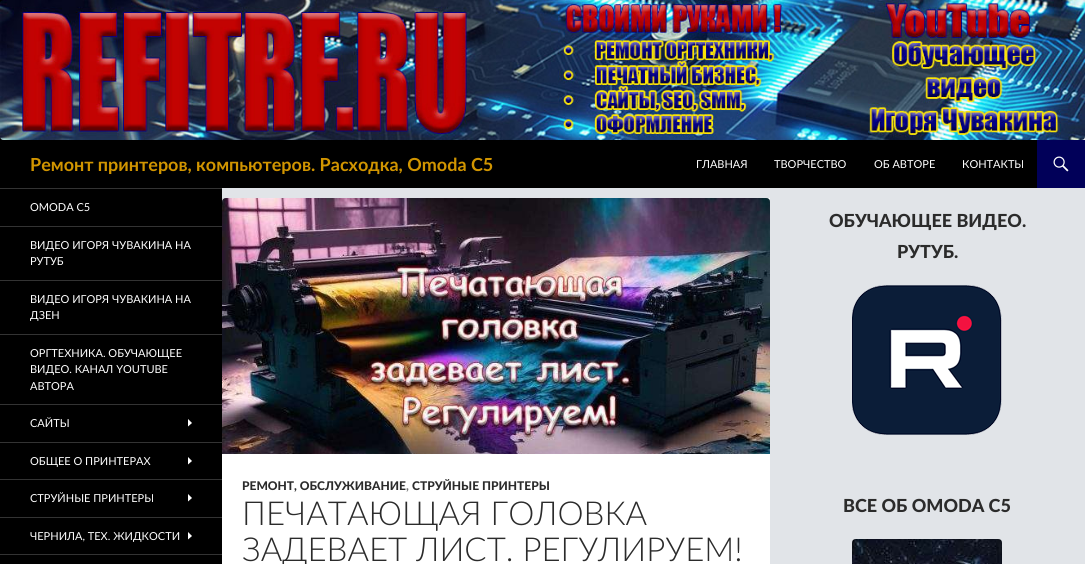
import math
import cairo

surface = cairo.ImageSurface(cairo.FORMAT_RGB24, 1085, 564)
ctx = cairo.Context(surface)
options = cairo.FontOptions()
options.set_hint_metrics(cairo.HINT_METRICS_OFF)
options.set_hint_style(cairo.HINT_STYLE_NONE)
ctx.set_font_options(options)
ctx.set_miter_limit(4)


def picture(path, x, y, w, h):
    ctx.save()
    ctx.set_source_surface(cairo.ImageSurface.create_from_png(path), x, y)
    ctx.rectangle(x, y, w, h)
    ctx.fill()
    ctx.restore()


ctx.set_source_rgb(0.882, 0.894, 0.91)
ctx.paint()
ctx.set_source_rgb(0, 0, 0)
ctx.rectangle(0, 0, 222, 564)
ctx.fill()
picture("img1.png", 0, 0, 1085, 140)
ctx.rectangle(222, 140, 815, 48)
ctx.fill()
ctx.select_font_face("Lato", cairo.FONT_SLANT_NORMAL, cairo.FONT_WEIGHT_BOLD)
ctx.set_font_size(18)
ctx.set_source_rgb(0.82, 0.584, 0)
ctx.move_to(30, 171)
ctx.show_text("Ремонт принтеров, компьютеров. Расходка, Omoda C5")
ctx.select_font_face("Lato")
ctx.set_font_size(11)
ctx.set_source_rgb(1, 1, 1)
ctx.move_to(696, 168)
ctx.show_text("ГЛАВНАЯ")
ctx.move_to(774, 168)
ctx.show_text("ТВОРЧЕСТВО")
ctx.move_to(874, 168)
ctx.show_text("ОБ АВТОРЕ")
ctx.move_to(962, 168)
ctx.show_text("КОНТАКТЫ")
ctx.set_source_rgb(0.004, 0, 0.349)
ctx.rectangle(1037, 140, 48, 48)
ctx.fill()
picture("img2.png", 1053, 156, 16, 16)
ctx.set_source_rgb(0.2, 0.2, 0.2)
ctx.rectangle(0, 188, 222, 1)
ctx.fill()
ctx.set_source_rgb(1, 1, 1)
ctx.move_to(30, 211)
ctx.show_text("OMODA C5")
ctx.set_source_rgb(0.2, 0.2, 0.2)
ctx.rectangle(0, 226, 222, 1)
ctx.fill()
ctx.set_source_rgb(1, 1, 1)
ctx.move_to(30, 249)
ctx.show_text("ВИДЕО ИГОРЯ ЧУВАКИНА НА")
ctx.move_to(30, 265)
ctx.show_text("РУТУБ")
ctx.set_source_rgb(0.2, 0.2, 0.2)
ctx.rectangle(0, 280, 222, 1)
ctx.fill()
ctx.set_source_rgb(1, 1, 1)
ctx.move_to(30, 303)
ctx.show_text("ВИДЕО ИГОРЯ ЧУВАКИНА НА")
ctx.move_to(30, 319)
ctx.show_text("ДЗЕН")
ctx.set_source_rgb(0.2, 0.2, 0.2)
ctx.rectangle(0, 334, 222, 1)
ctx.fill()
ctx.set_source_rgb(1, 1, 1)
ctx.move_to(30, 357)
ctx.show_text("ОРГТЕХНИКА. ОБУЧАЮЩЕЕ")
ctx.move_to(30, 373)
ctx.show_text("ВИДЕО. КАНАЛ YOUTUBE")
ctx.move_to(30, 390)
ctx.show_text("АВТОРА")
ctx.set_source_rgb(0.2, 0.2, 0.2)
ctx.rectangle(0, 404, 222, 1)
ctx.fill()
ctx.set_source_rgb(1, 1, 1)
ctx.move_to(30, 427)
ctx.show_text("САЙТЫ")
ctx.new_path()
ctx.move_to(188, 426.5)
ctx.line_to(188, 419)
ctx.line_to(192, 423)
ctx.close_path()
ctx.fill()
ctx.set_source_rgb(0.2, 0.2, 0.2)
ctx.rectangle(0, 442, 222, 1)
ctx.fill()
ctx.set_source_rgb(1, 1, 1)
ctx.move_to(30, 465)
ctx.show_text("ОБЩЕЕ О ПРИНТЕРАХ")
ctx.new_path()
ctx.move_to(188, 464.5)
ctx.line_to(188, 457)
ctx.line_to(192, 461)
ctx.close_path()
ctx.fill()
ctx.set_source_rgb(0.2, 0.2, 0.2)
ctx.rectangle(0, 479, 222, 1)
ctx.fill()
ctx.set_source_rgb(1, 1, 1)
ctx.move_to(30, 502)
ctx.show_text("СТРУЙНЫЕ ПРИНТЕРЫ")
ctx.new_path()
ctx.move_to(188, 501.5)
ctx.line_to(188, 494)
ctx.line_to(192, 498)
ctx.close_path()
ctx.fill()
ctx.set_source_rgb(0.2, 0.2, 0.2)
ctx.rectangle(0, 517, 222, 1)
ctx.fill()
ctx.set_source_rgb(1, 1, 1)
ctx.move_to(30, 540)
ctx.show_text("ЧЕРНИЛА, ТЕХ. ЖИДКОСТИ")
ctx.new_path()
ctx.move_to(188, 539.5)
ctx.line_to(188, 532)
ctx.line_to(192, 536)
ctx.close_path()
ctx.fill()
ctx.set_source_rgb(0.2, 0.2, 0.2)
ctx.rectangle(0, 554, 222, 1)
ctx.fill()
ctx.select_font_face("Lato Black")
ctx.set_font_size(18)
ctx.set_source_rgb(0.169, 0.169, 0.169)
ctx.move_to(829, 227)
ctx.show_text("ОБУЧАЮЩЕЕ ВИДЕО.")
ctx.move_to(897, 258)
ctx.show_text("РУТУБ.")
picture("img3.png", 852, 285, 150, 150)
ctx.move_to(843, 512)
ctx.show_text("ВСЕ ОБ OMODA C5")
picture("img4.png", 852, 539, 150, 25)
ctx.set_source_rgb(0.698, 0.698, 0.698)
ctx.rectangle(222, 198, 548, 4)
ctx.fill()
picture("img5.png", 222, 198, 548, 4)
picture("img6.png", 222, 198, 548, 256)
ctx.set_source_rgb(1, 1, 1)
ctx.rectangle(222, 454, 548, 110)
ctx.fill()
ctx.set_font_size(12)
ctx.set_source_rgb(0.169, 0.169, 0.169)
ctx.move_to(242, 490)
ctx.show_text("РЕМОНТ, ОБСЛУЖИВАНИЕ")
ctx.set_source_rgb(0.463, 0.463, 0.463)
ctx.move_to(406, 490)
ctx.show_text(",")
ctx.set_source_rgb(0.169, 0.169, 0.169)
ctx.move_to(412, 490)
ctx.show_text("СТРУЙНЫЕ ПРИНТЕРЫ")
ctx.select_font_face("Lato Light")
ctx.set_font_size(33)
ctx.move_to(242, 525)
ctx.show_text("ПЕЧАТАЮЩАЯ ГОЛОВКА")
ctx.move_to(242, 561)
ctx.show_text("ЗАДЕВАЕТ ЛИСТ. РЕГУЛИРУЕМ!")
surface.write_to_png("page.png")
